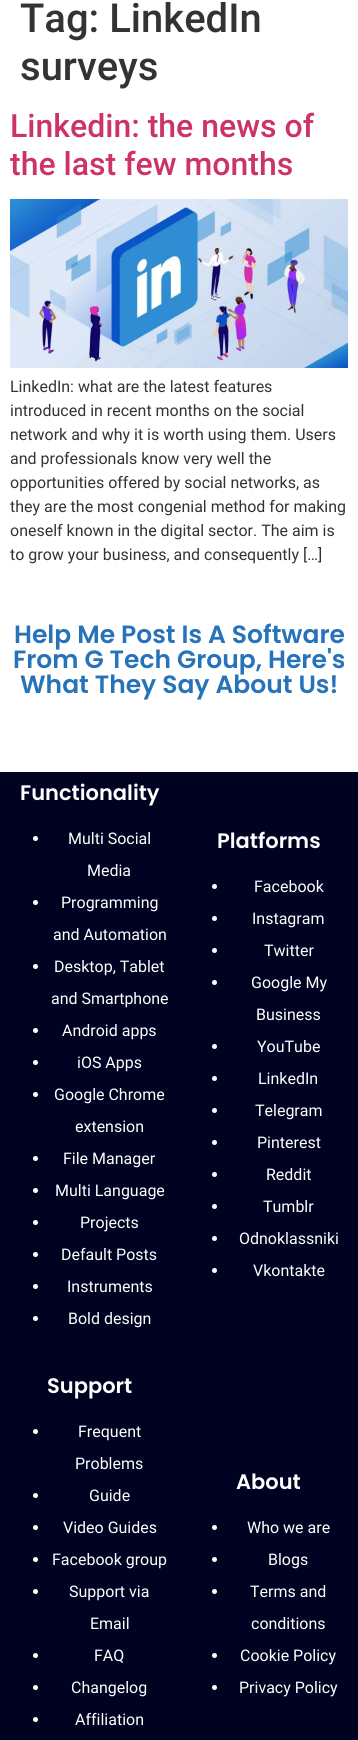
import math
import cairo

surface = cairo.ImageSurface(cairo.FORMAT_RGB24, 358, 1740)
ctx = cairo.Context(surface)
options = cairo.FontOptions()
options.set_hint_metrics(cairo.HINT_METRICS_OFF)
options.set_hint_style(cairo.HINT_STYLE_NONE)
ctx.set_font_options(options)
ctx.set_miter_limit(4)


def picture(path, x, y, w, h):
    ctx.save()
    ctx.set_source_surface(cairo.ImageSurface.create_from_png(path), x, y)
    ctx.rectangle(x, y, w, h)
    ctx.fill()
    ctx.restore()


ctx.set_source_rgb(1, 1, 1)
ctx.paint()
ctx.select_font_face("Roboto Medium")
ctx.set_font_size(40)
ctx.set_source_rgb(0.2, 0.2, 0.2)
ctx.move_to(20, 32)
ctx.show_text("Tag: LinkedIn")
ctx.move_to(20, 80)
ctx.show_text("surveys")
ctx.set_font_size(32)
ctx.set_source_rgb(0.8, 0.2, 0.4)
ctx.move_to(10, 137)
ctx.show_text("Linkedin: the news of")
ctx.move_to(10, 175)
ctx.show_text("the last few months")
picture("img1.png", 10, 199, 338, 169)
ctx.select_font_face("Roboto")
ctx.set_font_size(16)
ctx.set_source_rgb(0.2, 0.2, 0.2)
ctx.move_to(10, 392)
ctx.show_text("LinkedIn: what are the latest features")
ctx.move_to(10, 416)
ctx.show_text("introduced in recent months on the social")
ctx.move_to(10, 440)
ctx.show_text("network and why it is worth using them. Users")
ctx.move_to(10, 464)
ctx.show_text("and professionals know very well the")
ctx.move_to(10, 488)
ctx.show_text("opportunities offered by social networks, as")
ctx.move_to(10, 512)
ctx.show_text("they are the most congenial method for making")
ctx.move_to(10, 536)
ctx.show_text("oneself known in the digital sector. The aim is")
ctx.move_to(10, 560)
ctx.show_text("to grow your business, and consequently […]")
ctx.select_font_face("Poppins SemiBold")
ctx.set_font_size(25)
ctx.set_source_rgb(0.149, 0.451, 0.725)
ctx.move_to(14, 643)
ctx.show_text("Help Me Post Is A Software")
ctx.move_to(13, 668)
ctx.show_text("From G Tech Group, Here's")
ctx.move_to(20, 693)
ctx.show_text("What They Say About Us!")
ctx.set_source_rgb(0, 0.008, 0.133)
ctx.rectangle(0, 772, 358, 968)
ctx.fill()
ctx.set_font_size(21)
ctx.set_source_rgb(1, 1, 1)
ctx.move_to(20, 800)
ctx.show_text("Functionality")
ctx.new_path()
ctx.arc(35.5, 838.5, 2.5, 0, 2 * math.pi)
ctx.fill()
ctx.select_font_face("Roboto")
ctx.set_font_size(16)
ctx.move_to(68, 844)
ctx.show_text("Multi Social")
ctx.move_to(87, 876)
ctx.show_text("Media")
ctx.new_path()
ctx.arc(35.5, 902.5, 2.5, 0, 2 * math.pi)
ctx.fill()
ctx.move_to(61, 908)
ctx.show_text("Programming")
ctx.move_to(53, 940)
ctx.show_text("and Automation")
ctx.new_path()
ctx.arc(35.5, 966.5, 2.5, 0, 2 * math.pi)
ctx.fill()
ctx.move_to(54, 972)
ctx.show_text("Desktop, Tablet")
ctx.move_to(51, 1004)
ctx.show_text("and Smartphone")
ctx.new_path()
ctx.arc(35.5, 1030.5, 2.5, 0, 2 * math.pi)
ctx.fill()
ctx.move_to(62, 1036)
ctx.show_text("Android apps")
ctx.new_path()
ctx.arc(35.5, 1062.5, 2.5, 0, 2 * math.pi)
ctx.fill()
ctx.move_to(77, 1068)
ctx.show_text("iOS Apps")
ctx.new_path()
ctx.arc(35.5, 1094.5, 2.5, 0, 2 * math.pi)
ctx.fill()
ctx.move_to(54, 1100)
ctx.show_text("Google Chrome")
ctx.move_to(75, 1132)
ctx.show_text("extension")
ctx.new_path()
ctx.arc(35.5, 1158.5, 2.5, 0, 2 * math.pi)
ctx.fill()
ctx.move_to(63, 1164)
ctx.show_text("File Manager")
ctx.new_path()
ctx.arc(35.5, 1190.5, 2.5, 0, 2 * math.pi)
ctx.fill()
ctx.move_to(55, 1196)
ctx.show_text("Multi Language")
ctx.new_path()
ctx.arc(35.5, 1222.5, 2.5, 0, 2 * math.pi)
ctx.fill()
ctx.move_to(80, 1228)
ctx.show_text("Projects")
ctx.new_path()
ctx.arc(35.5, 1254.5, 2.5, 0, 2 * math.pi)
ctx.fill()
ctx.move_to(61, 1260)
ctx.show_text("Default Posts")
ctx.new_path()
ctx.arc(35.5, 1286.5, 2.5, 0, 2 * math.pi)
ctx.fill()
ctx.move_to(67, 1292)
ctx.show_text("Instruments")
ctx.new_path()
ctx.arc(35.5, 1318.5, 2.5, 0, 2 * math.pi)
ctx.fill()
ctx.move_to(68, 1324)
ctx.show_text("Bold design")
ctx.select_font_face("Poppins SemiBold")
ctx.set_font_size(21)
ctx.move_to(217, 848)
ctx.show_text("Platforms")
ctx.new_path()
ctx.arc(214.5, 886.5, 2.5, 0, 2 * math.pi)
ctx.fill()
ctx.select_font_face("Roboto")
ctx.set_font_size(16)
ctx.move_to(254, 892)
ctx.show_text("Facebook")
ctx.new_path()
ctx.arc(214.5, 918.5, 2.5, 0, 2 * math.pi)
ctx.fill()
ctx.move_to(252, 924)
ctx.show_text("Instagram")
ctx.new_path()
ctx.arc(214.5, 950.5, 2.5, 0, 2 * math.pi)
ctx.fill()
ctx.move_to(264, 956)
ctx.show_text("Twitter")
ctx.new_path()
ctx.arc(214.5, 982.5, 2.5, 0, 2 * math.pi)
ctx.fill()
ctx.move_to(251, 988)
ctx.show_text("Google My")
ctx.move_to(256, 1020)
ctx.show_text("Business")
ctx.new_path()
ctx.arc(214.5, 1046.5, 2.5, 0, 2 * math.pi)
ctx.fill()
ctx.move_to(257, 1052)
ctx.show_text("YouTube")
ctx.new_path()
ctx.arc(214.5, 1078.5, 2.5, 0, 2 * math.pi)
ctx.fill()
ctx.move_to(258, 1084)
ctx.show_text("LinkedIn")
ctx.new_path()
ctx.arc(214.5, 1110.5, 2.5, 0, 2 * math.pi)
ctx.fill()
ctx.move_to(255, 1116)
ctx.show_text("Telegram")
ctx.new_path()
ctx.arc(214.5, 1142.5, 2.5, 0, 2 * math.pi)
ctx.fill()
ctx.move_to(257, 1148)
ctx.show_text("Pinterest")
ctx.new_path()
ctx.arc(214.5, 1174.5, 2.5, 0, 2 * math.pi)
ctx.fill()
ctx.move_to(266, 1180)
ctx.show_text("Reddit")
ctx.new_path()
ctx.arc(214.5, 1206.5, 2.5, 0, 2 * math.pi)
ctx.fill()
ctx.move_to(263, 1212)
ctx.show_text("Tumblr")
ctx.new_path()
ctx.arc(214.5, 1238.5, 2.5, 0, 2 * math.pi)
ctx.fill()
ctx.move_to(239, 1244)
ctx.show_text("Odnoklassniki")
ctx.new_path()
ctx.arc(214.5, 1270.5, 2.5, 0, 2 * math.pi)
ctx.fill()
ctx.move_to(253, 1276)
ctx.show_text("Vkontakte")
ctx.select_font_face("Poppins SemiBold")
ctx.set_font_size(21)
ctx.move_to(47, 1393)
ctx.show_text("Support")
ctx.new_path()
ctx.arc(35.5, 1431.5, 2.5, 0, 2 * math.pi)
ctx.fill()
ctx.select_font_face("Roboto")
ctx.set_font_size(16)
ctx.move_to(78, 1437)
ctx.show_text("Frequent")
ctx.move_to(75, 1469)
ctx.show_text("Problems")
ctx.new_path()
ctx.arc(35.5, 1495.5, 2.5, 0, 2 * math.pi)
ctx.fill()
ctx.move_to(89, 1501)
ctx.show_text("Guide")
ctx.new_path()
ctx.arc(35.5, 1527.5, 2.5, 0, 2 * math.pi)
ctx.fill()
ctx.move_to(63, 1533)
ctx.show_text("Video Guides")
ctx.new_path()
ctx.arc(35.5, 1559.5, 2.5, 0, 2 * math.pi)
ctx.fill()
ctx.move_to(52, 1565)
ctx.show_text("Facebook group")
ctx.new_path()
ctx.arc(35.5, 1591.5, 2.5, 0, 2 * math.pi)
ctx.fill()
ctx.move_to(69, 1597)
ctx.show_text("Support via")
ctx.move_to(90, 1629)
ctx.show_text("Email")
ctx.new_path()
ctx.arc(35.5, 1655.5, 2.5, 0, 2 * math.pi)
ctx.fill()
ctx.move_to(94, 1661)
ctx.show_text("FAQ")
ctx.new_path()
ctx.arc(35.5, 1687.5, 2.5, 0, 2 * math.pi)
ctx.fill()
ctx.move_to(71, 1693)
ctx.show_text("Changelog")
ctx.new_path()
ctx.arc(35.5, 1719.5, 2.5, 0, 2 * math.pi)
ctx.fill()
ctx.move_to(75, 1725)
ctx.show_text("Affiliation")
ctx.select_font_face("Poppins SemiBold")
ctx.set_font_size(21)
ctx.move_to(236, 1489)
ctx.show_text("About")
ctx.new_path()
ctx.arc(214.5, 1527.5, 2.5, 0, 2 * math.pi)
ctx.fill()
ctx.select_font_face("Roboto")
ctx.set_font_size(16)
ctx.move_to(247, 1533)
ctx.show_text("Who we are")
ctx.new_path()
ctx.arc(214.5, 1559.5, 2.5, 0, 2 * math.pi)
ctx.fill()
ctx.move_to(268, 1565)
ctx.show_text("Blogs")
ctx.new_path()
ctx.arc(214.5, 1591.5, 2.5, 0, 2 * math.pi)
ctx.fill()
ctx.move_to(250, 1597)
ctx.show_text("Terms and")
ctx.move_to(251, 1629)
ctx.show_text("conditions")
ctx.new_path()
ctx.arc(214.5, 1655.5, 2.5, 0, 2 * math.pi)
ctx.fill()
ctx.move_to(240, 1661)
ctx.show_text("Cookie Policy")
ctx.new_path()
ctx.arc(214.5, 1687.5, 2.5, 0, 2 * math.pi)
ctx.fill()
ctx.move_to(239, 1693)
ctx.show_text("Privacy Policy")
surface.write_to_png("page.png")
